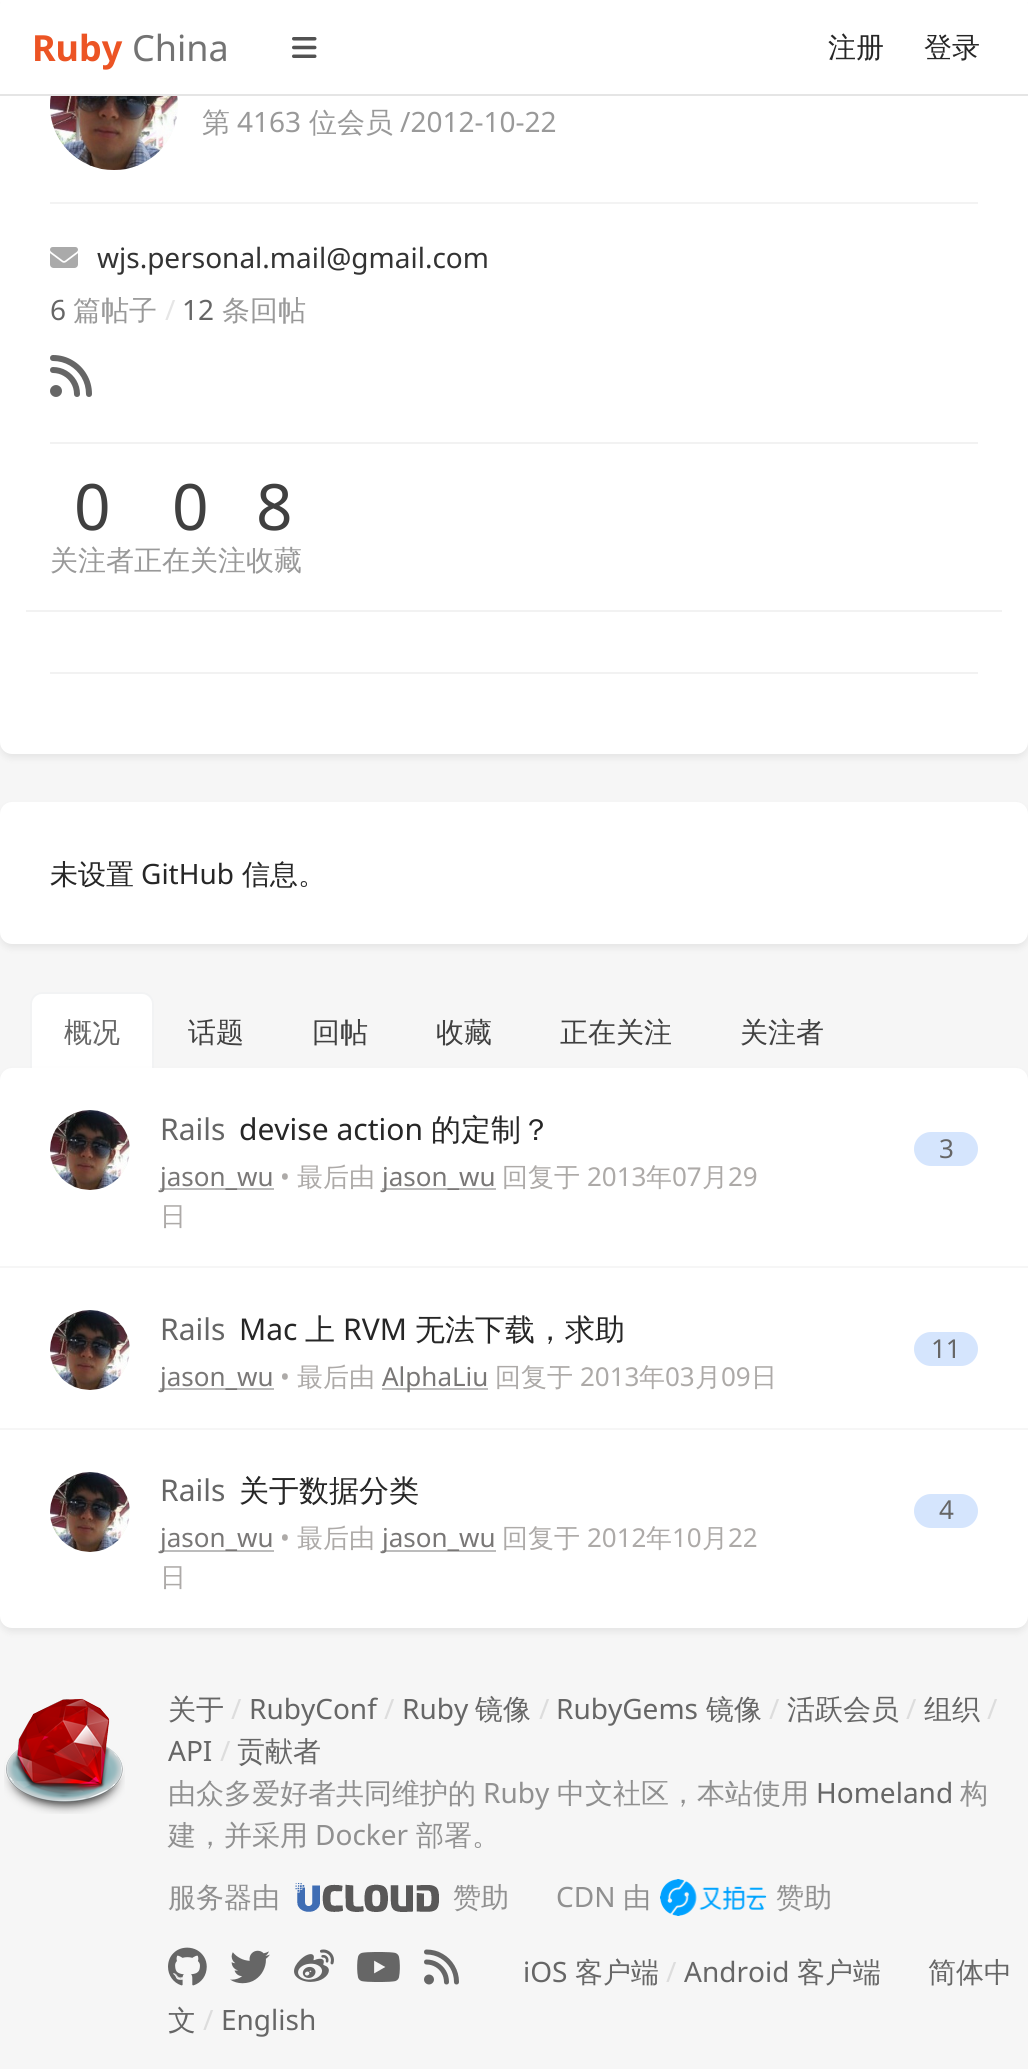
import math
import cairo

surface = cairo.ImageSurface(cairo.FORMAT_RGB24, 1028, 2069)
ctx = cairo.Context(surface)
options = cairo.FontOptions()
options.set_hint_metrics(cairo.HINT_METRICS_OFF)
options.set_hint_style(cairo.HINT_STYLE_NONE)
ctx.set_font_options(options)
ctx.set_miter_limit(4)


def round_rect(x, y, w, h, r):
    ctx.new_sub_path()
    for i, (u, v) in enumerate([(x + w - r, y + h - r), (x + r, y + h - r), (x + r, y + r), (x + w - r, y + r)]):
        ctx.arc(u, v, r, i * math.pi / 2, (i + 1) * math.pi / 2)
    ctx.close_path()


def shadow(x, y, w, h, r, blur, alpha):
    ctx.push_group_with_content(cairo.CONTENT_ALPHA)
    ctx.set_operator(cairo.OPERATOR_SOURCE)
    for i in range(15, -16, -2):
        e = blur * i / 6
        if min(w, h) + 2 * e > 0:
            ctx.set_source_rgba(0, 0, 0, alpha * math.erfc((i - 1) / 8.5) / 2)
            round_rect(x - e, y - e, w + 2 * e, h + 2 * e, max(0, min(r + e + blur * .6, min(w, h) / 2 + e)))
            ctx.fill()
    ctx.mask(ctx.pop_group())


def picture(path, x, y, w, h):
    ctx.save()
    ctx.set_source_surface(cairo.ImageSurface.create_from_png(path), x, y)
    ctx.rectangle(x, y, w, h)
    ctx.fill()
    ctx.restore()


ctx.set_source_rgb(0.961, 0.961, 0.961)
ctx.paint()
ctx.set_source_rgb(0, 0, 0)
shadow(0, -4, 1028, 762, 12, 4, 0.07)
ctx.set_source_rgb(1, 1, 1)
round_rect(0, -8, 1028, 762, 12)
ctx.fill()
ctx.rectangle(0, 0, 1028, 2)
ctx.fill()
ctx.set_source_rgb(0.898, 0.898, 0.898)
ctx.rectangle(0, 94, 1028, 2)
ctx.fill()
ctx.select_font_face("Noto Sans", cairo.FONT_SLANT_NORMAL, cairo.FONT_WEIGHT_BOLD)
ctx.set_font_size(36)
ctx.set_source_rgb(0.922, 0.329, 0.141)
ctx.move_to(32, 61)
ctx.show_text("Ruby")
ctx.select_font_face("Noto Sans")
ctx.set_source_rgb(0.451, 0.451, 0.451)
ctx.move_to(132, 61)
ctx.show_text("China")
picture("img1.png", 292, 37, 25, 21)
ctx.select_font_face("WenQuanYi Zen Hei Medium")
ctx.set_font_size(28)
ctx.set_source_rgb(0.149, 0.149, 0.149)
ctx.move_to(828, 57)
ctx.show_text("注册")
ctx.move_to(924, 57)
ctx.show_text("登录")
picture("img2.png", 50, 96, 128, 74)
ctx.set_source_rgb(0.6, 0.6, 0.6)
ctx.move_to(202, 132)
ctx.show_text("第")
ctx.select_font_face("Noto Sans")
ctx.move_to(237, 132)
ctx.show_text("4163")
ctx.select_font_face("WenQuanYi Zen Hei Medium")
ctx.move_to(309, 132)
ctx.show_text("位会员")
ctx.select_font_face("Noto Sans")
ctx.move_to(400, 132)
ctx.show_text("/2012-10-22")
ctx.set_source_rgb(0.953, 0.953, 0.953)
ctx.rectangle(50, 202, 928, 2)
ctx.fill()
picture("img3.png", 50, 247, 28, 21)
ctx.set_source_rgb(0.2, 0.2, 0.2)
ctx.move_to(97, 268)
ctx.show_text("wjs.personal.mail@gmail.com")
ctx.set_source_rgb(0.4, 0.4, 0.4)
ctx.move_to(50, 320)
ctx.show_text("6")
ctx.select_font_face("WenQuanYi Zen Hei Medium")
ctx.set_source_rgb(0.6, 0.6, 0.6)
ctx.move_to(73, 320)
ctx.show_text("篇帖子")
ctx.select_font_face("Noto Sans")
ctx.set_source_rgb(0.902, 0.902, 0.902)
ctx.move_to(165, 320)
ctx.show_text("/")
ctx.set_source_rgb(0.4, 0.4, 0.4)
ctx.move_to(182, 320)
ctx.show_text("12")
ctx.select_font_face("WenQuanYi Zen Hei Medium")
ctx.set_source_rgb(0.6, 0.6, 0.6)
ctx.move_to(222, 320)
ctx.show_text("条回帖")
picture("img4.png", 50, 355, 42, 42)
ctx.set_source_rgb(0.949, 0.949, 0.949)
ctx.rectangle(50, 442, 928, 2)
ctx.fill()
ctx.select_font_face("Noto Sans")
ctx.set_font_size(64)
ctx.set_source_rgb(0.251, 0.251, 0.251)
ctx.move_to(74, 530)
ctx.show_text("0")
ctx.select_font_face("WenQuanYi Zen Hei Medium")
ctx.set_font_size(28)
ctx.set_source_rgb(0.6, 0.6, 0.6)
ctx.move_to(50, 570)
ctx.show_text("关注者正在关注收藏")
ctx.select_font_face("Noto Sans")
ctx.set_font_size(64)
ctx.set_source_rgb(0.251, 0.251, 0.251)
ctx.move_to(172, 530)
ctx.show_text("0")
ctx.move_to(256, 530)
ctx.show_text("8")
ctx.set_source_rgb(0.949, 0.949, 0.949)
ctx.rectangle(26, 610, 976, 2)
ctx.fill()
ctx.rectangle(50, 672, 928, 2)
ctx.fill()
ctx.set_source_rgb(0, 0, 0)
shadow(0, 806, 1028, 142, 12, 4, 0.07)
ctx.set_source_rgb(1, 1, 1)
round_rect(0, 802, 1028, 142, 12)
ctx.fill()
ctx.select_font_face("WenQuanYi Zen Hei Medium")
ctx.set_font_size(28)
ctx.set_source_rgb(0.149, 0.149, 0.149)
ctx.move_to(50, 884)
ctx.show_text("未设置")
ctx.select_font_face("Noto Sans")
ctx.move_to(141, 884)
ctx.show_text("GitHub")
ctx.select_font_face("WenQuanYi Zen Hei Medium")
ctx.move_to(242, 884)
ctx.show_text("信息。")
ctx.set_source_rgb(1, 1, 1)
ctx.new_path()
ctx.move_to(42, 992)
ctx.line_to(142, 992)
ctx.curve_to(148.5, 992, 154, 997.5, 154, 1004)
ctx.line_to(154, 1070)
ctx.line_to(30, 1070)
ctx.line_to(30, 1004)
ctx.curve_to(30, 997.5, 35.5, 992, 42, 992)
ctx.close_path()
ctx.fill()
ctx.new_path()
ctx.move_to(42, 993)
ctx.line_to(142, 993)
ctx.curve_to(148, 993, 153, 998, 153, 1004)
ctx.line_to(153, 1069)
ctx.line_to(31, 1069)
ctx.line_to(31, 1004)
ctx.curve_to(31, 998, 36, 993, 42, 993)
ctx.close_path()
ctx.set_source_rgba(0.471, 0.51, 0.549, 0.09)
ctx.stroke()
ctx.set_source_rgb(0.4, 0.4, 0.4)
ctx.move_to(64, 1042)
ctx.show_text("概况")
ctx.set_source_rgb(0.251, 0.251, 0.251)
ctx.move_to(188, 1042)
ctx.show_text("话题")
ctx.move_to(312, 1042)
ctx.show_text("回帖")
ctx.move_to(436, 1042)
ctx.show_text("收藏")
ctx.move_to(560, 1042)
ctx.show_text("正在关注")
ctx.move_to(740, 1042)
ctx.show_text("关注者")
ctx.set_source_rgb(0, 0, 0)
shadow(0, 1072, 1028, 560, 12, 4, 0.07)
ctx.set_source_rgb(1, 1, 1)
round_rect(0, 1068, 1028, 560, 12)
ctx.fill()
ctx.set_source_rgb(0.961, 0.961, 0.961)
ctx.rectangle(0, 1266, 1028, 2)
ctx.fill()
picture("img5.png", 50, 1110, 80, 80)
ctx.select_font_face("Noto Sans")
ctx.set_font_size(30)
ctx.set_source_rgb(0.4, 0.4, 0.4)
ctx.move_to(160, 1140)
ctx.show_text("Rails")
ctx.set_source_rgb(0.149, 0.149, 0.149)
ctx.move_to(239, 1140)
ctx.show_text("devise action")
ctx.select_font_face("WenQuanYi Zen Hei Medium")
ctx.move_to(431, 1140)
ctx.show_text("的定制？")
ctx.set_source_rgb(0.737, 0.737, 0.737)
ctx.rectangle(160, 1188, 114, 2)
ctx.fill()
ctx.select_font_face("Noto Sans")
ctx.set_font_size(26)
ctx.set_source_rgb(0.475, 0.467, 0.463)
ctx.move_to(160, 1186)
ctx.show_text("jason_wu")
ctx.set_source_rgb(0.678, 0.667, 0.659)
ctx.move_to(280, 1186)
ctx.show_text("•")
ctx.select_font_face("WenQuanYi Zen Hei Medium")
ctx.move_to(297, 1186)
ctx.show_text("最后由")
ctx.set_source_rgb(0.737, 0.737, 0.737)
ctx.rectangle(382, 1188, 114, 2)
ctx.fill()
ctx.select_font_face("Noto Sans")
ctx.set_source_rgb(0.475, 0.467, 0.463)
ctx.move_to(382, 1186)
ctx.show_text("jason_wu")
ctx.select_font_face("WenQuanYi Zen Hei Medium")
ctx.set_source_rgb(0.678, 0.667, 0.659)
ctx.move_to(502, 1186)
ctx.show_text("回复于")
ctx.select_font_face("Noto Sans")
ctx.move_to(587, 1186)
ctx.show_text("2013")
ctx.select_font_face("WenQuanYi Zen Hei Medium")
ctx.move_to(646, 1186)
ctx.show_text("年")
ctx.select_font_face("Noto Sans")
ctx.move_to(672, 1186)
ctx.show_text("07")
ctx.select_font_face("WenQuanYi Zen Hei Medium")
ctx.move_to(702, 1186)
ctx.show_text("月")
ctx.select_font_face("Noto Sans")
ctx.move_to(728, 1186)
ctx.show_text("29")
ctx.select_font_face("WenQuanYi Zen Hei Medium")
ctx.move_to(160, 1225)
ctx.show_text("日")
ctx.set_source_rgb(0.835, 0.898, 0.992)
round_rect(914, 1132, 64, 34, 17)
ctx.fill()
ctx.select_font_face("Noto Sans")
ctx.set_source_rgb(0.4, 0.4, 0.4)
ctx.move_to(939, 1158)
ctx.show_text("3")
ctx.set_source_rgb(0.961, 0.961, 0.961)
ctx.rectangle(0, 1428, 1028, 2)
ctx.fill()
picture("img6.png", 50, 1310, 80, 80)
ctx.set_font_size(30)
ctx.set_source_rgb(0.4, 0.4, 0.4)
ctx.move_to(160, 1340)
ctx.show_text("Rails")
ctx.set_source_rgb(0.149, 0.149, 0.149)
ctx.move_to(239, 1340)
ctx.show_text("Mac")
ctx.select_font_face("WenQuanYi Zen Hei Medium")
ctx.move_to(305, 1340)
ctx.show_text("上")
ctx.select_font_face("Noto Sans")
ctx.move_to(343, 1340)
ctx.show_text("RVM")
ctx.select_font_face("WenQuanYi Zen Hei Medium")
ctx.move_to(415, 1340)
ctx.show_text("无法下载，求助")
ctx.set_source_rgb(0.737, 0.737, 0.737)
ctx.rectangle(160, 1388, 114, 2)
ctx.fill()
ctx.select_font_face("Noto Sans")
ctx.set_font_size(26)
ctx.set_source_rgb(0.475, 0.467, 0.463)
ctx.move_to(160, 1386)
ctx.show_text("jason_wu")
ctx.set_source_rgb(0.678, 0.667, 0.659)
ctx.move_to(280, 1386)
ctx.show_text("•")
ctx.select_font_face("WenQuanYi Zen Hei Medium")
ctx.move_to(297, 1386)
ctx.show_text("最后由")
ctx.set_source_rgb(0.737, 0.737, 0.737)
ctx.rectangle(382, 1388, 106, 2)
ctx.fill()
ctx.select_font_face("Noto Sans")
ctx.set_source_rgb(0.475, 0.467, 0.463)
ctx.move_to(382, 1386)
ctx.show_text("AlphaLiu")
ctx.select_font_face("WenQuanYi Zen Hei Medium")
ctx.set_source_rgb(0.678, 0.667, 0.659)
ctx.move_to(495, 1386)
ctx.show_text("回复于")
ctx.select_font_face("Noto Sans")
ctx.move_to(580, 1386)
ctx.show_text("2013")
ctx.select_font_face("WenQuanYi Zen Hei Medium")
ctx.move_to(639, 1386)
ctx.show_text("年")
ctx.select_font_face("Noto Sans")
ctx.move_to(665, 1386)
ctx.show_text("03")
ctx.select_font_face("WenQuanYi Zen Hei Medium")
ctx.move_to(695, 1386)
ctx.show_text("月")
ctx.select_font_face("Noto Sans")
ctx.move_to(721, 1386)
ctx.show_text("09")
ctx.select_font_face("WenQuanYi Zen Hei Medium")
ctx.move_to(751, 1386)
ctx.show_text("日")
ctx.set_source_rgb(0.835, 0.898, 0.992)
round_rect(914, 1332, 64, 34, 17)
ctx.fill()
ctx.select_font_face("Noto Sans")
ctx.set_source_rgb(0.4, 0.4, 0.4)
ctx.move_to(931, 1358)
ctx.show_text("11")
picture("img7.png", 50, 1472, 80, 80)
ctx.set_font_size(30)
ctx.move_to(160, 1501)
ctx.show_text("Rails")
ctx.select_font_face("WenQuanYi Zen Hei Medium")
ctx.set_source_rgb(0.149, 0.149, 0.149)
ctx.move_to(239, 1501)
ctx.show_text("关于数据分类")
ctx.set_source_rgb(0.737, 0.737, 0.737)
ctx.rectangle(160, 1550, 114, 2)
ctx.fill()
ctx.select_font_face("Noto Sans")
ctx.set_font_size(26)
ctx.set_source_rgb(0.475, 0.467, 0.463)
ctx.move_to(160, 1547)
ctx.show_text("jason_wu")
ctx.set_source_rgb(0.678, 0.667, 0.659)
ctx.move_to(280, 1547)
ctx.show_text("•")
ctx.select_font_face("WenQuanYi Zen Hei Medium")
ctx.move_to(297, 1547)
ctx.show_text("最后由")
ctx.set_source_rgb(0.737, 0.737, 0.737)
ctx.rectangle(382, 1550, 114, 2)
ctx.fill()
ctx.select_font_face("Noto Sans")
ctx.set_source_rgb(0.475, 0.467, 0.463)
ctx.move_to(382, 1547)
ctx.show_text("jason_wu")
ctx.select_font_face("WenQuanYi Zen Hei Medium")
ctx.set_source_rgb(0.678, 0.667, 0.659)
ctx.move_to(502, 1547)
ctx.show_text("回复于")
ctx.select_font_face("Noto Sans")
ctx.move_to(587, 1547)
ctx.show_text("2012")
ctx.select_font_face("WenQuanYi Zen Hei Medium")
ctx.move_to(646, 1547)
ctx.show_text("年")
ctx.select_font_face("Noto Sans")
ctx.move_to(672, 1547)
ctx.show_text("10")
ctx.select_font_face("WenQuanYi Zen Hei Medium")
ctx.move_to(702, 1547)
ctx.show_text("月")
ctx.select_font_face("Noto Sans")
ctx.move_to(728, 1547)
ctx.show_text("22")
ctx.select_font_face("WenQuanYi Zen Hei Medium")
ctx.move_to(160, 1586)
ctx.show_text("日")
ctx.set_source_rgb(0.835, 0.898, 0.992)
round_rect(914, 1494, 64, 34, 17)
ctx.fill()
ctx.select_font_face("Noto Sans")
ctx.set_source_rgb(0.4, 0.4, 0.4)
ctx.move_to(939, 1519)
ctx.show_text("4")
picture("img8.png", 4, 1698, 121, 116)
ctx.select_font_face("WenQuanYi Zen Hei Medium")
ctx.set_font_size(28)
ctx.move_to(168, 1719)
ctx.show_text("关于")
ctx.select_font_face("Noto Sans")
ctx.set_source_rgb(0.867, 0.867, 0.867)
ctx.move_to(231, 1719)
ctx.show_text("/")
ctx.set_source_rgb(0.4, 0.4, 0.4)
ctx.move_to(249, 1719)
ctx.show_text("RubyConf")
ctx.set_source_rgb(0.867, 0.867, 0.867)
ctx.move_to(384, 1719)
ctx.show_text("/")
ctx.set_source_rgb(0.4, 0.4, 0.4)
ctx.move_to(402, 1719)
ctx.show_text("Ruby")
ctx.select_font_face("WenQuanYi Zen Hei Medium")
ctx.move_to(475, 1719)
ctx.show_text("镜像")
ctx.select_font_face("Noto Sans")
ctx.set_source_rgb(0.867, 0.867, 0.867)
ctx.move_to(539, 1719)
ctx.show_text("/")
ctx.set_source_rgb(0.4, 0.4, 0.4)
ctx.move_to(556, 1719)
ctx.show_text("RubyGems")
ctx.select_font_face("WenQuanYi Zen Hei Medium")
ctx.move_to(706, 1719)
ctx.show_text("镜像")
ctx.select_font_face("Noto Sans")
ctx.set_source_rgb(0.867, 0.867, 0.867)
ctx.move_to(769, 1719)
ctx.show_text("/")
ctx.select_font_face("WenQuanYi Zen Hei Medium")
ctx.set_source_rgb(0.4, 0.4, 0.4)
ctx.move_to(787, 1719)
ctx.show_text("活跃会员")
ctx.select_font_face("Noto Sans")
ctx.set_source_rgb(0.867, 0.867, 0.867)
ctx.move_to(906, 1719)
ctx.show_text("/")
ctx.select_font_face("WenQuanYi Zen Hei Medium")
ctx.set_source_rgb(0.4, 0.4, 0.4)
ctx.move_to(924, 1719)
ctx.show_text("组织")
ctx.select_font_face("Noto Sans")
ctx.set_source_rgb(0.867, 0.867, 0.867)
ctx.move_to(987, 1719)
ctx.show_text("/")
ctx.set_source_rgb(0.4, 0.4, 0.4)
ctx.move_to(168, 1761)
ctx.show_text("API")
ctx.set_source_rgb(0.867, 0.867, 0.867)
ctx.move_to(220, 1761)
ctx.show_text("/")
ctx.select_font_face("WenQuanYi Zen Hei Medium")
ctx.set_source_rgb(0.4, 0.4, 0.4)
ctx.move_to(237, 1761)
ctx.show_text("贡献者")
ctx.set_source_rgb(0.565, 0.565, 0.565)
ctx.move_to(168, 1803)
ctx.show_text("由众多爱好者共同维护的")
ctx.select_font_face("Noto Sans")
ctx.move_to(483, 1803)
ctx.show_text("Ruby")
ctx.select_font_face("WenQuanYi Zen Hei Medium")
ctx.move_to(557, 1803)
ctx.show_text("中文社区，本站使用")
ctx.select_font_face("Noto Sans")
ctx.set_source_rgb(0.4, 0.4, 0.4)
ctx.move_to(816, 1803)
ctx.show_text("Homeland")
ctx.select_font_face("WenQuanYi Zen Hei Medium")
ctx.set_source_rgb(0.565, 0.565, 0.565)
ctx.move_to(960, 1803)
ctx.show_text("构")
ctx.move_to(168, 1845)
ctx.show_text("建，并采用")
ctx.select_font_face("Noto Sans")
ctx.move_to(315, 1845)
ctx.show_text("Docker")
ctx.select_font_face("WenQuanYi Zen Hei Medium")
ctx.move_to(416, 1845)
ctx.show_text("部署。")
ctx.move_to(168, 1907)
ctx.show_text("服务器由")
picture("img9.png", 295, 1883, 144, 29)
ctx.move_to(453, 1907)
ctx.show_text("赞助")
ctx.select_font_face("Noto Sans")
ctx.move_to(556, 1907)
ctx.show_text("CDN")
ctx.select_font_face("WenQuanYi Zen Hei Medium")
ctx.move_to(623, 1907)
ctx.show_text("由")
picture("img10.png", 660, 1879, 107, 37)
ctx.move_to(776, 1907)
ctx.show_text("赞助")
picture("img11.png", 168, 1947, 39, 39)
picture("img12.png", 230, 1950, 40, 34)
picture("img13.png", 294, 1949, 40, 33)
picture("img14.png", 357, 1952, 43, 30)
picture("img15.png", 424, 1949, 35, 36)
ctx.select_font_face("Noto Sans")
ctx.set_source_rgb(0.4, 0.4, 0.4)
ctx.move_to(523, 1982)
ctx.show_text("iOS")
ctx.select_font_face("WenQuanYi Zen Hei Medium")
ctx.move_to(575, 1982)
ctx.show_text("客户端")
ctx.select_font_face("Noto Sans")
ctx.set_source_rgb(0.867, 0.867, 0.867)
ctx.move_to(666, 1982)
ctx.show_text("/")
ctx.set_source_rgb(0.4, 0.4, 0.4)
ctx.move_to(684, 1982)
ctx.show_text("Android")
ctx.select_font_face("WenQuanYi Zen Hei Medium")
ctx.move_to(797, 1982)
ctx.show_text("客户端")
ctx.move_to(928, 1982)
ctx.show_text("简体中")
ctx.move_to(168, 2030)
ctx.show_text("文")
ctx.select_font_face("Noto Sans")
ctx.set_source_rgb(0.867, 0.867, 0.867)
ctx.move_to(203, 2030)
ctx.show_text("/")
ctx.set_source_rgb(0.4, 0.4, 0.4)
ctx.move_to(221, 2030)
ctx.show_text("English")
surface.write_to_png("page.png")
